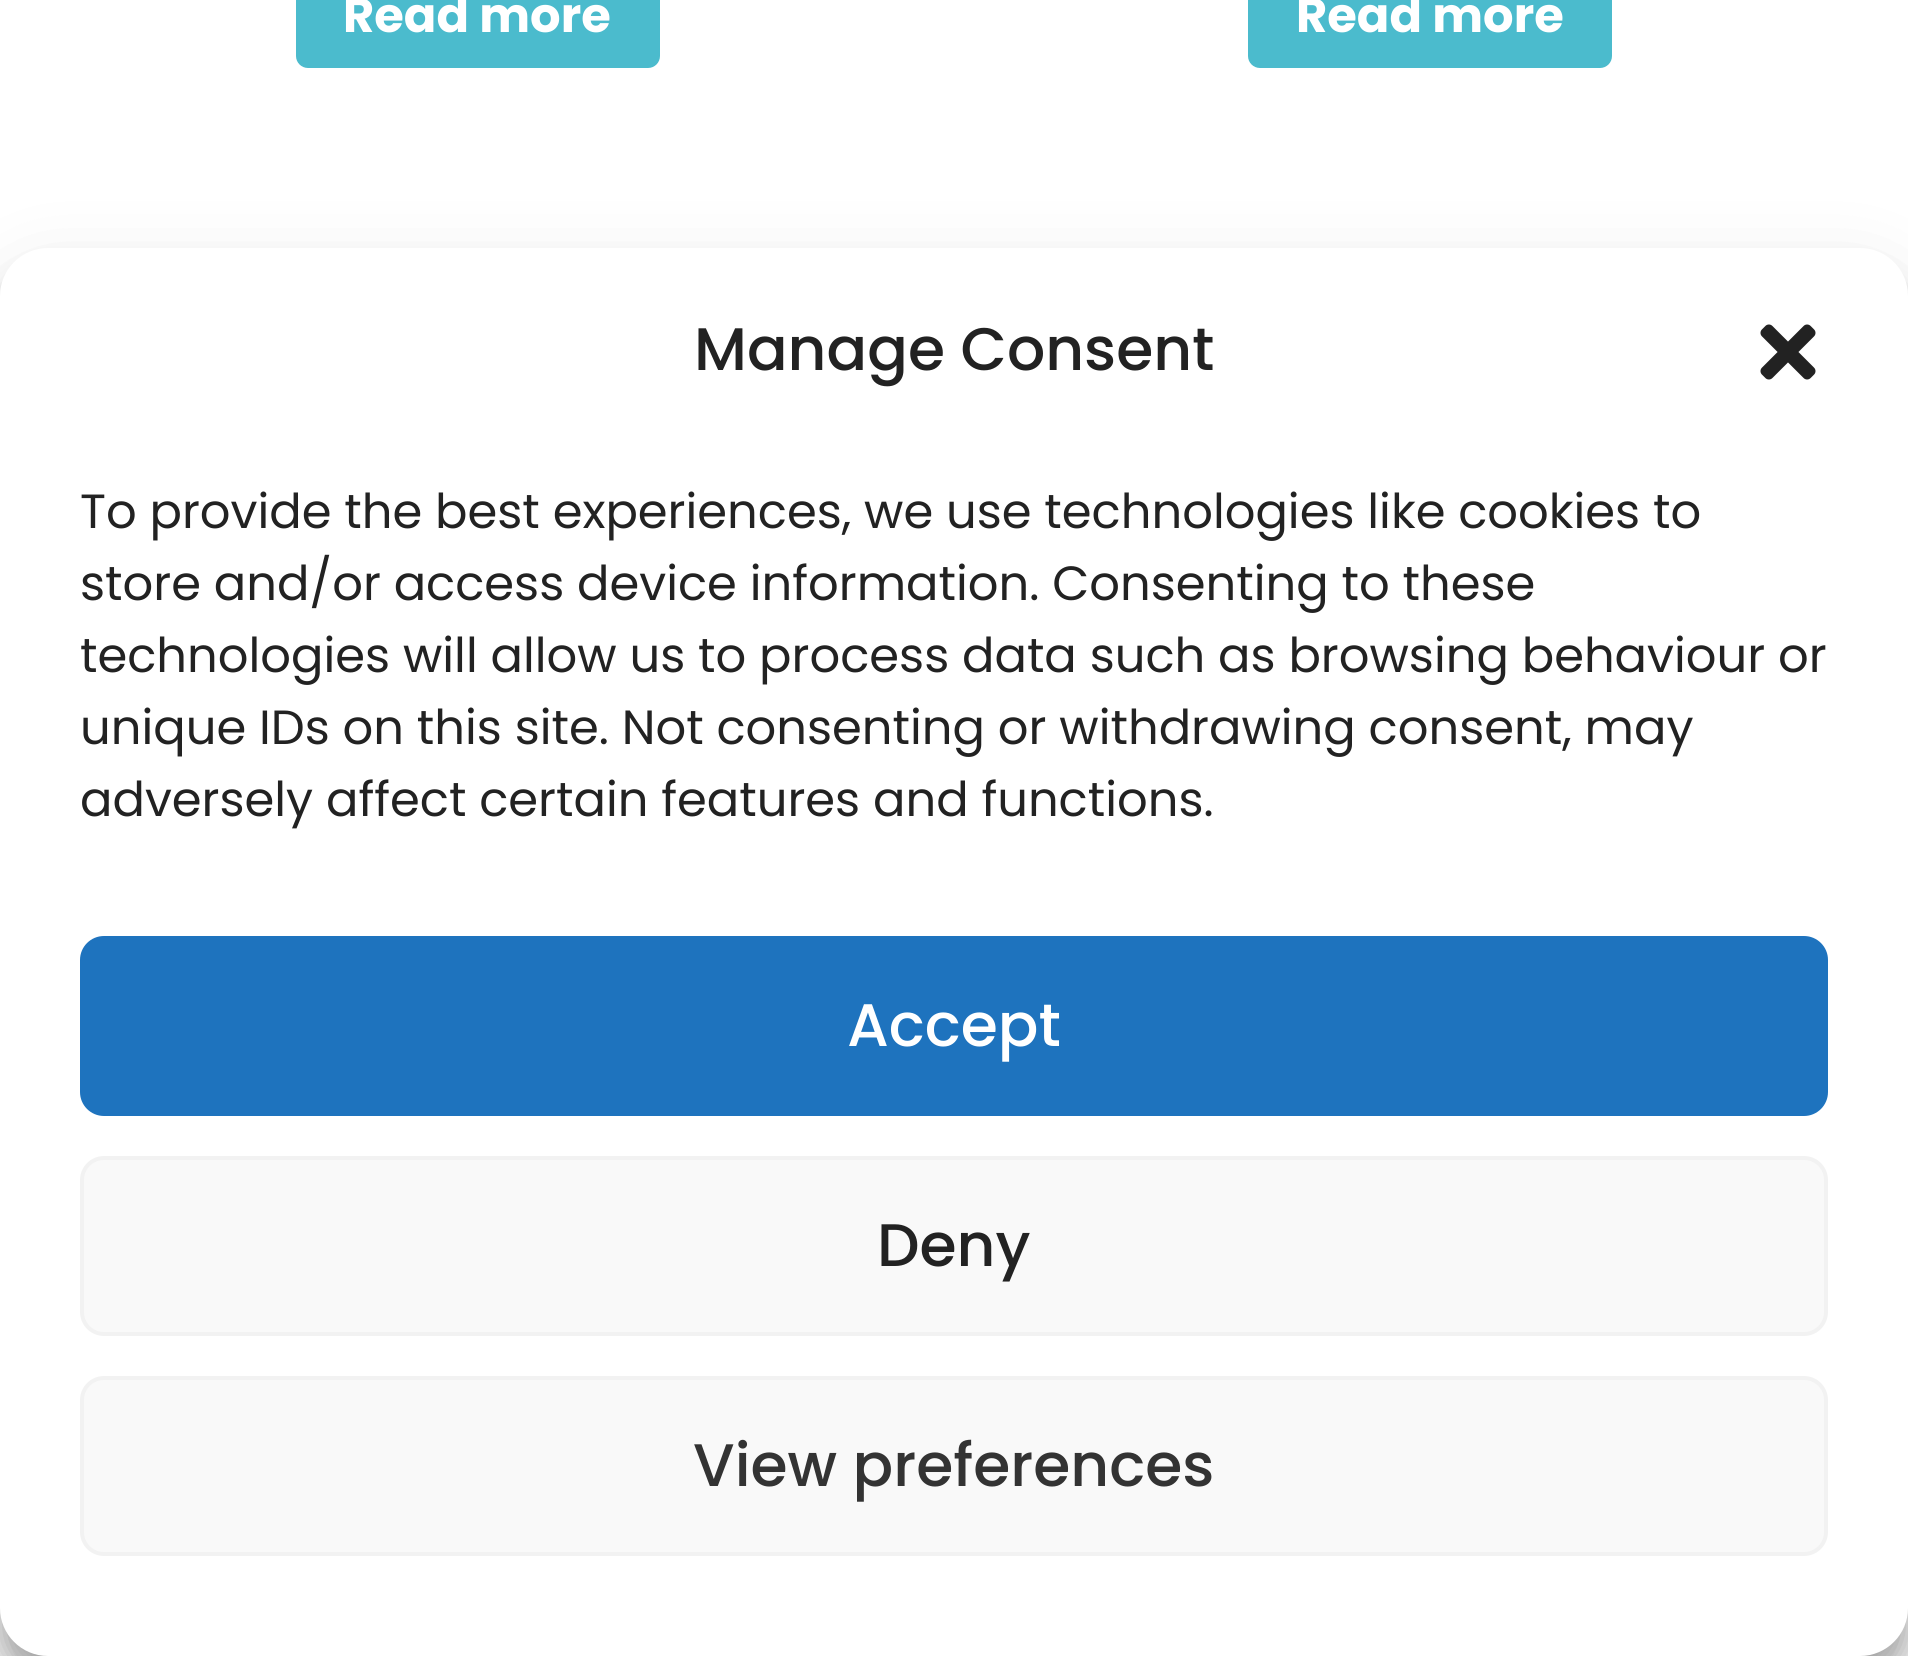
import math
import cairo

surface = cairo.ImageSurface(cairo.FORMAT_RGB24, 1908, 1656)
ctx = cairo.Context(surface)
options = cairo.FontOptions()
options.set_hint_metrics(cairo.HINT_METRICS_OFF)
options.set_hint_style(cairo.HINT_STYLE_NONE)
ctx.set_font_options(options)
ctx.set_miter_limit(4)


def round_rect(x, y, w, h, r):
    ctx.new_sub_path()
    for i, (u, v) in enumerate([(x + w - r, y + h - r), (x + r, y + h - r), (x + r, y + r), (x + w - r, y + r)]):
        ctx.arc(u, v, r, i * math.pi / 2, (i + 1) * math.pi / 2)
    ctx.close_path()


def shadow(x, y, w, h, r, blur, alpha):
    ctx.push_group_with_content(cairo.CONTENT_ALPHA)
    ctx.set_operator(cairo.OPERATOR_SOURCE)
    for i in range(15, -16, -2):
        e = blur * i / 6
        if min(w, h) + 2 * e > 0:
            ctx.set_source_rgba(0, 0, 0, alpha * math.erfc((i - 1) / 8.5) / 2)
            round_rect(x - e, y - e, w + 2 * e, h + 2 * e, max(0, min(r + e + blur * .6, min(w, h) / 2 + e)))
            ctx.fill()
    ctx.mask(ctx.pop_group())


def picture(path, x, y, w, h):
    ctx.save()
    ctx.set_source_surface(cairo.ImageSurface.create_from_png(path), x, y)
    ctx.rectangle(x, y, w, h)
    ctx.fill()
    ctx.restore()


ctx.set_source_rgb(1, 1, 1)
ctx.paint()
ctx.set_source_rgb(0.294, 0.733, 0.804)
round_rect(296, -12, 364, 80, 12)
ctx.fill()
ctx.select_font_face("Poppins", cairo.FONT_SLANT_NORMAL, cairo.FONT_WEIGHT_BOLD)
ctx.set_font_size(48)
ctx.set_source_rgb(1, 1, 1)
ctx.move_to(343, 32)
ctx.show_text("Read more")
ctx.set_source_rgb(0.294, 0.733, 0.804)
round_rect(1248, -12, 364, 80, 12)
ctx.fill()
ctx.set_source_rgb(1, 1, 1)
ctx.move_to(1296, 32)
ctx.show_text("Read more")
ctx.set_source_rgb(0, 0, 0)
shadow(0, 272, 1908, 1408, 48, 12, 0.23)
shadow(0, 288, 1908, 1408, 48, 40, 0.19)
ctx.set_source_rgb(1, 1, 1)
round_rect(0, 248, 1908, 1408, 48)
ctx.fill()
ctx.select_font_face("Poppins Medium")
ctx.set_font_size(60)
ctx.set_source_rgb(0.133, 0.133, 0.133)
ctx.move_to(694, 370)
ctx.show_text("Manage Consent")
picture("img1.png", 1760, 324, 56, 56)
ctx.select_font_face("Poppins")
ctx.set_font_size(48)
ctx.move_to(80, 528)
ctx.show_text("To provide the best experiences, we use technologies like cookies to")
ctx.move_to(80, 600)
ctx.show_text("store and/or access device information. Consenting to these")
ctx.move_to(80, 672)
ctx.show_text("technologies will allow us to process data such as browsing behaviour or")
ctx.move_to(80, 744)
ctx.show_text("unique IDs on this site. Not consenting or withdrawing consent, may")
ctx.move_to(80, 816)
ctx.show_text("adversely affect certain features and functions.")
ctx.set_source_rgb(0.118, 0.451, 0.745)
round_rect(82, 938, 1744, 176, 22)
ctx.fill_preserve()
ctx.set_line_width(4)
ctx.stroke()
ctx.select_font_face("Poppins Medium")
ctx.set_font_size(60)
ctx.set_source_rgb(1, 1, 1)
ctx.move_to(847, 1046)
ctx.show_text("Accept")
ctx.set_source_rgb(0.976, 0.976, 0.976)
round_rect(82, 1158, 1744, 176, 22)
ctx.fill_preserve()
ctx.set_source_rgb(0.949, 0.949, 0.949)
ctx.stroke()
ctx.set_source_rgb(0.133, 0.133, 0.133)
ctx.move_to(877, 1266)
ctx.show_text("Deny")
ctx.set_source_rgb(0.976, 0.976, 0.976)
round_rect(82, 1378, 1744, 176, 22)
ctx.fill_preserve()
ctx.set_source_rgb(0.949, 0.949, 0.949)
ctx.stroke()
ctx.set_source_rgb(0.2, 0.2, 0.2)
ctx.move_to(693, 1486)
ctx.show_text("View preferences")
surface.write_to_png("page.png")
